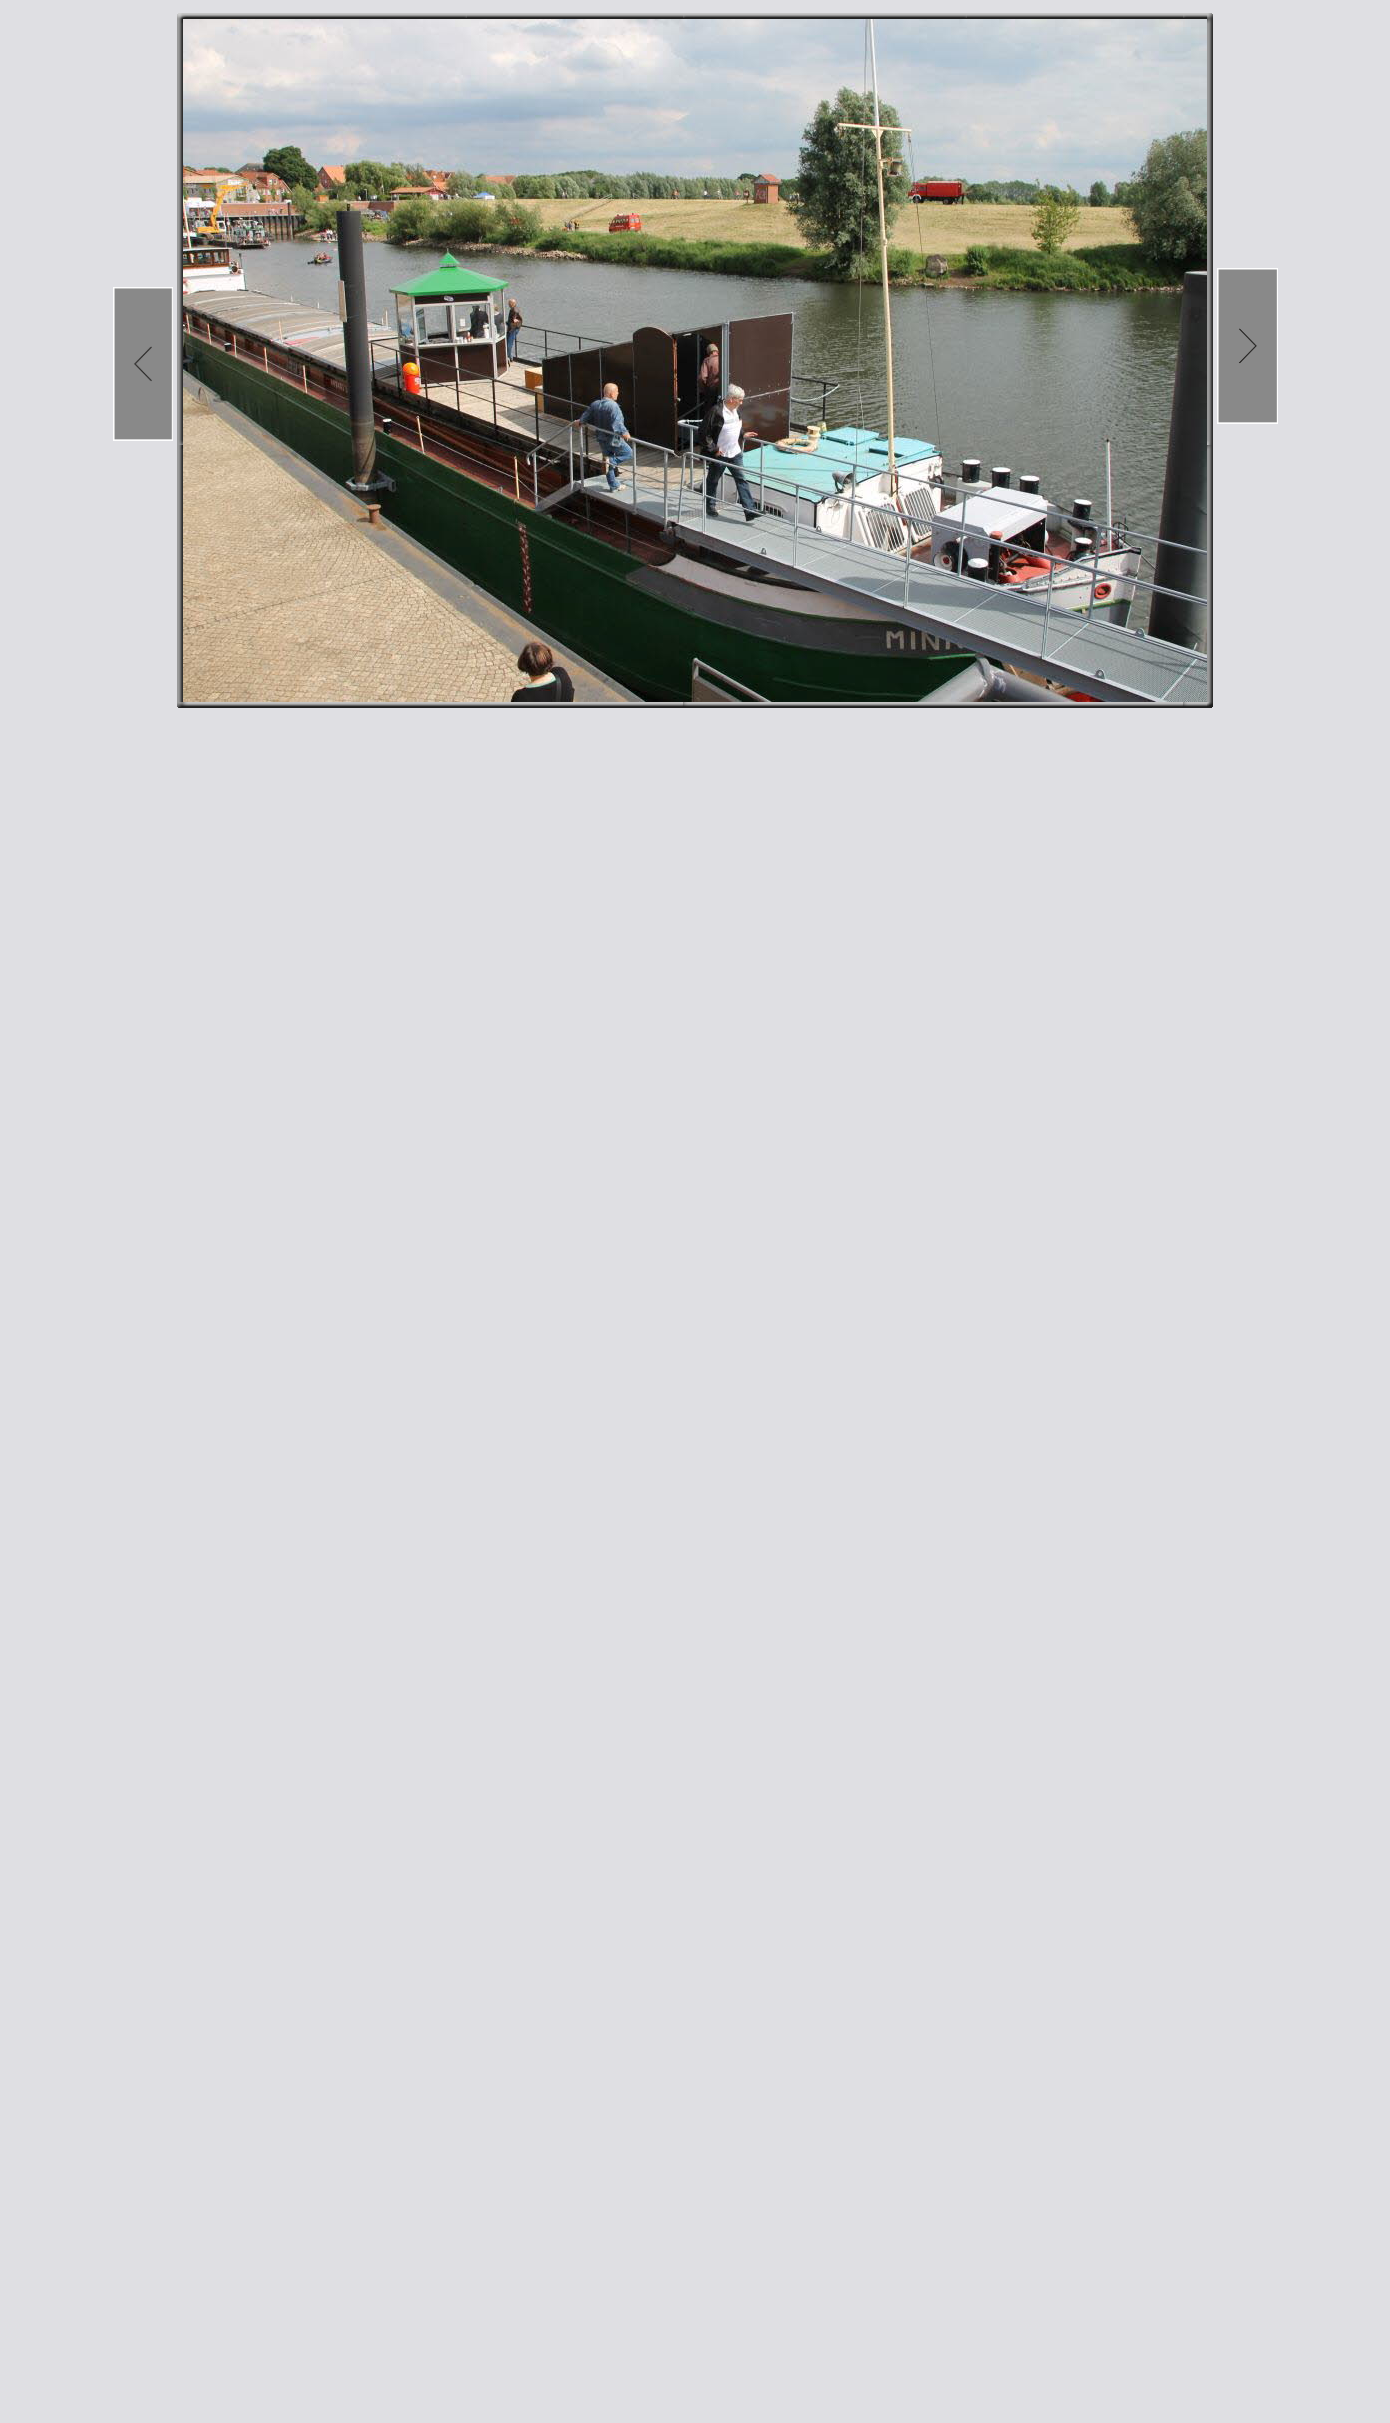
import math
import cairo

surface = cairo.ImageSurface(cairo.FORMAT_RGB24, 1390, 2423)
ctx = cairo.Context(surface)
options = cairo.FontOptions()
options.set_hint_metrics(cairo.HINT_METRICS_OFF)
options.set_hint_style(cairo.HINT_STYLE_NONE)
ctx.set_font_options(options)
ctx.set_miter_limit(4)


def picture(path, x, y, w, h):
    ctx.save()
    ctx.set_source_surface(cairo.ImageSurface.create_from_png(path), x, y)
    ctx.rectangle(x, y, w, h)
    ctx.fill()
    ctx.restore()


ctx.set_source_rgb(0.875, 0.875, 0.89)
ctx.paint()
picture("img1.png", 113, 287, 60, 154)
picture("img2.png", 177, 13, 6, 6)
picture("img3.png", 183, 13, 1024, 6)
picture("img4.png", 1207, 13, 6, 6)
picture("img5.png", 177, 19, 6, 683)
picture("img6.png", 183, 19, 1024, 683)
picture("img7.png", 1207, 19, 6, 683)
picture("img8.png", 177, 702, 6, 6)
picture("img9.png", 183, 702, 1024, 6)
picture("img10.png", 1207, 702, 6, 6)
picture("img11.png", 1217, 268, 61, 156)
surface.write_to_png("page.png")
